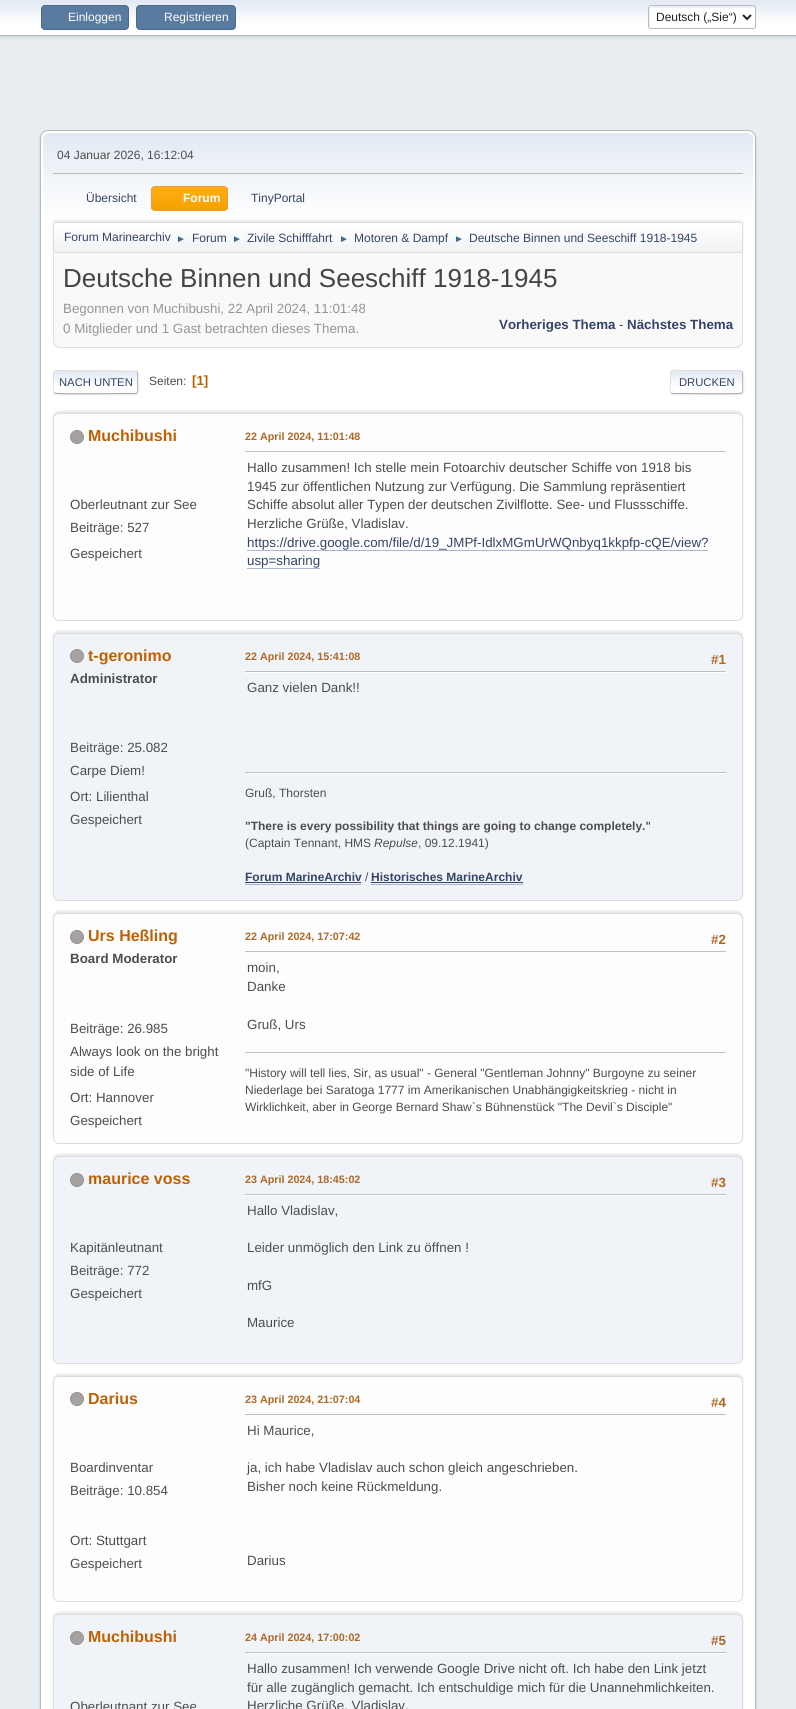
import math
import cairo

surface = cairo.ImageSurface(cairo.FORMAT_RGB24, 796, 1709)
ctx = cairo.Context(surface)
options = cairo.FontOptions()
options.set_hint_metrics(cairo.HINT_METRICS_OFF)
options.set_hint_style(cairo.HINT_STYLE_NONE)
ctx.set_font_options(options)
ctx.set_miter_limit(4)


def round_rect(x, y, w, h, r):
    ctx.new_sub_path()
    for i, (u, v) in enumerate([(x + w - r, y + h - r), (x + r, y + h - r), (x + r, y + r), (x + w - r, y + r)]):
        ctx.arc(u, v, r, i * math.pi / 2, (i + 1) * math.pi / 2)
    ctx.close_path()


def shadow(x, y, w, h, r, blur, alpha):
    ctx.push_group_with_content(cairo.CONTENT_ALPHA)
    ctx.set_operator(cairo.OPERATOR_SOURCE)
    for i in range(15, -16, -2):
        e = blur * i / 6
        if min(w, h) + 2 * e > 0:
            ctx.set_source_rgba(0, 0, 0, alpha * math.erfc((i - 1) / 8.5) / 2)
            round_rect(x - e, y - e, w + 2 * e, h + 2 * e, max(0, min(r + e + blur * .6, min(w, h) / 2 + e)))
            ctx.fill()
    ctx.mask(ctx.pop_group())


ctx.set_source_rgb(0.914, 0.933, 0.949)
ctx.paint()
ctx.set_source_rgb(0, 0, 0)
shadow(0, 1, 796, 36, 0, 2, 0.16)
gradient = cairo.LinearGradient(398, 0, 398, 35)
gradient.add_color_stop_rgba(0, 0.886, 0.914, 0.953, 1)
gradient.add_color_stop_rgba(0.7, 1, 1, 1, 1)
ctx.set_source(gradient)
ctx.rectangle(0, 0, 796, 35)
ctx.fill()
ctx.set_source_rgb(0.733, 0.733, 0.733)
ctx.rectangle(0, 35, 796, 1)
ctx.fill()
ctx.set_source_rgb(0.349, 0.482, 0.624)
round_rect(41.5, 5.5, 87, 24, 3.5)
ctx.fill_preserve()
ctx.set_source_rgb(0.29, 0.42, 0.549)
ctx.set_line_width(1)
ctx.stroke()
ctx.select_font_face("Liberation Sans")
ctx.set_font_size(12)
ctx.set_source_rgb(1, 1, 1)
ctx.move_to(68, 21)
ctx.show_text("Einloggen")
ctx.set_source_rgb(0.349, 0.482, 0.624)
round_rect(136.5, 5.5, 99, 24, 3.5)
ctx.fill_preserve()
ctx.set_source_rgb(0.29, 0.42, 0.549)
ctx.stroke()
ctx.set_source_rgb(1, 1, 1)
ctx.move_to(164, 21)
ctx.show_text("Registrieren")
round_rect(648, 5, 108, 24, 3)
ctx.fill()
ctx.set_source_rgb(0.925, 0.945, 0.973)
ctx.new_path()
ctx.move_to(652, 8)
ctx.line_to(755, 8)
ctx.curve_to(755, 7, 755, 6, 753, 6)
ctx.line_to(651, 6)
ctx.curve_to(650, 6, 649, 7, 649, 8)
ctx.curve_to(649, 11, 648, 27, 650, 28)
ctx.line_to(650, 10)
ctx.curve_to(650, 9, 651, 8, 652, 8)
ctx.close_path()
ctx.fill()
round_rect(648.5, 5.5, 107, 23, 2.5)
ctx.set_source_rgb(0.733, 0.733, 0.733)
ctx.stroke()
ctx.new_path()
ctx.move_to(743, 15)
ctx.line_to(747, 19)
ctx.line_to(751, 15)
ctx.set_source_rgb(0.133, 0.133, 0.133)
ctx.set_line_width(2)
ctx.stroke()
ctx.move_to(656, 21)
ctx.show_text("Deutsch („Sie“)")
ctx.set_source_rgb(0, 0, 0)
shadow(40, 132, 716, 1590, 8, 1.5, 0.14)
ctx.set_source_rgb(1, 1, 1)
round_rect(40.5, 130.5, 715, 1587, 7.5)
ctx.fill_preserve()
ctx.set_source_rgb(0.722, 0.722, 0.722)
ctx.set_line_width(1)
ctx.stroke()
gradient = cairo.LinearGradient(398, 133, 398, 255)
gradient.add_color_stop_rgba(0, 0.886, 0.914, 0.953, 1)
gradient.add_color_stop_rgba(0.7, 1, 1, 1, 1)
ctx.set_source(gradient)
ctx.new_path()
ctx.move_to(49, 133)
ctx.line_to(747, 133)
ctx.curve_to(750.5, 133, 753, 135.5, 753, 139)
ctx.line_to(753, 255)
ctx.line_to(43, 255)
ctx.line_to(43, 139)
ctx.curve_to(43, 135.5, 45.5, 133, 49, 133)
ctx.close_path()
ctx.fill()
ctx.set_source_rgb(0.733, 0.733, 0.733)
ctx.rectangle(53, 173, 690, 1)
ctx.fill()
ctx.set_source_rgb(0.302, 0.302, 0.302)
ctx.move_to(57, 159)
ctx.show_text("04 Januar 2026, 16:12:04")
ctx.set_source_rgb(0.2, 0.267, 0.4)
ctx.move_to(86, 202)
ctx.show_text("Übersicht")
ctx.save()
round_rect(151, 186, 77, 25, 4)
ctx.clip()
gradient = cairo.LinearGradient(190, 187, 190, 210)
gradient.add_color_stop_rgba(0, 1, 0.682, 0.078, 1)
gradient.add_color_stop_rgba(1, 0.961, 0.631, 0, 1)
ctx.set_source(gradient)
ctx.rectangle(151, 187, 77, 23)
ctx.fill()
ctx.restore()
round_rect(151.5, 186.5, 76, 24, 3.5)
ctx.set_source_rgb(0.957, 0.604, 0.227)
ctx.stroke()
ctx.select_font_face("Liberation Sans", cairo.FONT_SLANT_NORMAL, cairo.FONT_WEIGHT_BOLD)
ctx.set_source_rgb(1, 1, 1)
ctx.move_to(183, 202)
ctx.show_text("Forum")
ctx.select_font_face("Liberation Sans")
ctx.set_source_rgb(0.2, 0.267, 0.4)
ctx.move_to(251, 202)
ctx.show_text("TinyPortal")
ctx.set_source_rgb(0, 0, 0)
shadow(53, 220, 690, 31, 2, 1, 0.08)
ctx.save()
round_rect(53, 222, 690, 31, 2)
ctx.clip()
gradient = cairo.LinearGradient(398, 223, 398, 252)
gradient.add_color_stop_rgba(0, 1, 1, 1, 1)
gradient.add_color_stop_rgba(0.95, 0.945, 0.953, 0.961, 1)
ctx.set_source(gradient)
ctx.rectangle(53, 223, 690, 29)
ctx.fill()
ctx.restore()
round_rect(53.5, 222.5, 689, 30, 1.5)
ctx.set_source_rgb(0.867, 0.867, 0.867)
ctx.stroke()
ctx.set_source_rgb(0.2, 0.267, 0.4)
ctx.move_to(64, 241)
ctx.show_text("Forum Marinearchiv")
ctx.set_font_size(10)
ctx.set_source_rgb(0.247, 0.42, 0.549)
ctx.move_to(176, 242)
ctx.show_text("►")
ctx.set_font_size(12)
ctx.set_source_rgb(0.2, 0.267, 0.4)
ctx.move_to(192, 242)
ctx.show_text("Forum")
ctx.set_font_size(10)
ctx.set_source_rgb(0.247, 0.42, 0.549)
ctx.move_to(232, 242)
ctx.show_text("►")
ctx.set_font_size(12)
ctx.set_source_rgb(0.2, 0.267, 0.4)
ctx.move_to(247, 242)
ctx.show_text("Zivile Schifffahrt")
ctx.set_font_size(10)
ctx.set_source_rgb(0.247, 0.42, 0.549)
ctx.move_to(339, 242)
ctx.show_text("►")
ctx.set_font_size(12)
ctx.set_source_rgb(0.2, 0.267, 0.4)
ctx.move_to(354, 242)
ctx.show_text("Motoren & Dampf")
ctx.set_font_size(10)
ctx.set_source_rgb(0.247, 0.42, 0.549)
ctx.move_to(454, 242)
ctx.show_text("►")
ctx.set_font_size(12)
ctx.set_source_rgb(0.2, 0.267, 0.4)
ctx.move_to(469, 242)
ctx.show_text("Deutsche Binnen und Seeschiff 1918-1945")
ctx.set_source_rgb(0.973, 0.973, 0.973)
ctx.new_path()
ctx.move_to(53, 253)
ctx.line_to(743, 253)
ctx.line_to(743, 341)
ctx.curve_to(743, 345, 740, 348, 736, 348)
ctx.line_to(60, 348)
ctx.curve_to(56, 348, 53, 345, 53, 341)
ctx.close_path()
ctx.fill()
ctx.set_source_rgb(0.867, 0.867, 0.867)
ctx.set_fill_rule(cairo.FILL_RULE_EVEN_ODD)
ctx.new_path()
ctx.move_to(53, 253)
ctx.line_to(743, 253)
ctx.line_to(743, 341)
ctx.curve_to(743, 345, 740, 348, 736, 348)
ctx.line_to(60, 348)
ctx.curve_to(56, 348, 53, 345, 53, 341)
ctx.close_path()
ctx.move_to(54, 253)
ctx.line_to(742, 253)
ctx.line_to(742, 341)
ctx.curve_to(742, 344, 739, 347, 736, 347)
ctx.line_to(60, 347)
ctx.curve_to(57, 347, 54, 344, 54, 341)
ctx.close_path()
ctx.fill()
ctx.set_font_size(26)
ctx.set_source_rgb(0.267, 0.267, 0.267)
ctx.move_to(63, 287)
ctx.show_text("Deutsche Binnen und Seeschiff 1918-1945")
ctx.set_font_size(13.35)
ctx.set_source_rgb(0.584, 0.584, 0.584)
ctx.move_to(63, 313)
ctx.show_text("Begonnen von Muchibushi, 22 April 2024, 11:01:48")
ctx.move_to(63, 333)
ctx.show_text("0 Mitglieder und 1 Gast betrachten dieses Thema.")
ctx.select_font_face("Liberation Sans", cairo.FONT_SLANT_NORMAL, cairo.FONT_WEIGHT_BOLD)
ctx.set_source_rgb(0.2, 0.267, 0.4)
ctx.move_to(499, 329)
ctx.show_text("Vorheriges Thema")
ctx.select_font_face("Liberation Sans")
ctx.set_source_rgb(0.302, 0.302, 0.302)
ctx.move_to(619, 329)
ctx.show_text("-")
ctx.select_font_face("Liberation Sans", cairo.FONT_SLANT_NORMAL, cairo.FONT_WEIGHT_BOLD)
ctx.set_source_rgb(0.2, 0.267, 0.4)
ctx.move_to(627, 329)
ctx.show_text("Nächstes Thema")
ctx.set_source_rgb(0.867, 0.867, 0.867)
shadow(54, 371, 85, 24, 3, 0.5, 0.57)
ctx.set_source_rgb(1, 1, 1)
round_rect(53, 370, 85, 24, 3)
ctx.fill()
ctx.save()
ctx.set_fill_rule(cairo.FILL_RULE_WINDING)
round_rect(53, 370, 85, 24, 3)
ctx.clip()
gradient = cairo.LinearGradient(96, 371, 96, 393)
gradient.add_color_stop_rgba(0, 0.886, 0.914, 0.953, 1)
gradient.add_color_stop_rgba(0.7, 1, 1, 1, 1)
ctx.set_source(gradient)
ctx.rectangle(53, 371, 85, 22)
ctx.fill()
gradient = cairo.LinearGradient(96, 393, 96, 415)
gradient.add_color_stop_rgba(0, 0.886, 0.914, 0.953, 1)
gradient.add_color_stop_rgba(0.7, 1, 1, 1, 1)
ctx.set_source(gradient)
ctx.rectangle(53, 393, 85, 1)
ctx.fill()
ctx.restore()
ctx.new_path()
ctx.move_to(137, 371)
ctx.curve_to(137, 371.5, 137.5, 372.5, 137.5, 373)
ctx.line_to(137.5, 391)
ctx.curve_to(137.5, 391.5, 137, 392.5, 137, 393)
ctx.set_source_rgb(0.733, 0.733, 0.733)
ctx.stroke()
ctx.new_path()
ctx.move_to(137, 393)
ctx.line_to(135, 393.5)
ctx.line_to(122, 393.5)
ctx.curve_to(114.5, 393.5, 56.5, 394.5, 54.5, 393)
ctx.line_to(54, 393)
ctx.set_source_rgb(0.667, 0.667, 0.667)
ctx.stroke()
ctx.save()
ctx.set_fill_rule(cairo.FILL_RULE_WINDING)
ctx.rectangle(53, 363, 690, 38)
ctx.clip()
ctx.new_path()
ctx.move_to(54, 393)
ctx.curve_to(52.5, 391, 53.5, 384, 53.5, 382)
ctx.line_to(53.5, 376)
ctx.curve_to(53.5, 374, 53, 370.5, 56, 370.5)
ctx.line_to(136, 371)
ctx.line_to(137, 371)
ctx.set_source_rgb(0.867, 0.867, 0.867)
ctx.stroke()
ctx.restore()
ctx.select_font_face("Liberation Sans")
ctx.set_font_size(11.25)
ctx.set_source_rgb(0.2, 0.267, 0.4)
ctx.move_to(59, 386)
ctx.show_text("NACH UNTEN")
ctx.set_font_size(12)
ctx.set_source_rgb(0.302, 0.302, 0.302)
ctx.move_to(149, 385)
ctx.show_text("Seiten:")
ctx.select_font_face("Liberation Sans", cairo.FONT_SLANT_NORMAL, cairo.FONT_WEIGHT_BOLD)
ctx.set_font_size(13.35)
ctx.set_source_rgb(0.706, 0.38, 0)
ctx.move_to(192, 385)
ctx.show_text("[1]")
ctx.save()
ctx.new_path()
ctx.move_to(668, 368)
ctx.line_to(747, 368)
ctx.line_to(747, 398)
ctx.line_to(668, 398)
ctx.close_path()
ctx.move_to(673, 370)
ctx.line_to(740, 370)
ctx.curve_to(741.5, 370, 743, 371.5, 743, 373)
ctx.line_to(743, 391)
ctx.curve_to(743, 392.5, 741.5, 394, 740, 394)
ctx.line_to(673, 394)
ctx.curve_to(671.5, 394, 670, 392.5, 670, 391)
ctx.line_to(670, 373)
ctx.curve_to(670, 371.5, 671.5, 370, 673, 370)
ctx.close_path()
ctx.clip()
ctx.set_source_rgb(0.867, 0.867, 0.867)
shadow(671, 371, 73, 24, 3, 0.5, 0.57)
ctx.restore()
ctx.save()
ctx.set_fill_rule(cairo.FILL_RULE_WINDING)
round_rect(670, 370, 73, 24, 3)
ctx.clip()
gradient = cairo.LinearGradient(707, 371, 707, 393)
gradient.add_color_stop_rgba(0, 0.886, 0.914, 0.953, 1)
gradient.add_color_stop_rgba(0.7, 1, 1, 1, 1)
ctx.set_source(gradient)
ctx.rectangle(670, 371, 73, 22)
ctx.fill()
gradient = cairo.LinearGradient(707, 393, 707, 415)
gradient.add_color_stop_rgba(0, 0.886, 0.914, 0.953, 1)
gradient.add_color_stop_rgba(0.7, 1, 1, 1, 1)
ctx.set_source(gradient)
ctx.rectangle(670, 393, 73, 1)
ctx.fill()
ctx.restore()
ctx.new_path()
ctx.move_to(742, 371)
ctx.curve_to(742, 371.5, 742.5, 372.5, 742.5, 373)
ctx.line_to(742.5, 391)
ctx.curve_to(742.5, 391.5, 742, 392.5, 742, 393)
ctx.set_source_rgb(0.733, 0.733, 0.733)
ctx.stroke()
ctx.new_path()
ctx.move_to(742, 393)
ctx.line_to(741.5, 393)
ctx.curve_to(739.5, 394.5, 690.5, 393.5, 684, 393.5)
ctx.line_to(673, 393.5)
ctx.line_to(671, 393)
ctx.set_source_rgb(0.667, 0.667, 0.667)
ctx.stroke()
ctx.new_path()
ctx.move_to(671, 393)
ctx.curve_to(669.5, 391, 670.5, 384, 670.5, 382)
ctx.curve_to(670.5, 368, 668.5, 370.5, 684, 370.5)
ctx.line_to(740, 370.5)
ctx.line_to(742, 371)
ctx.set_source_rgb(0.867, 0.867, 0.867)
ctx.stroke()
ctx.select_font_face("Liberation Sans")
ctx.set_font_size(11.25)
ctx.set_source_rgb(0.2, 0.267, 0.4)
ctx.move_to(679, 386)
ctx.show_text("DRUCKEN")
ctx.set_source_rgb(0, 0, 0)
shadow(53, 411, 690, 208, 6, 1, 0.1)
ctx.set_source_rgb(0.992, 0.992, 0.992)
round_rect(53.5, 413.5, 689, 207, 5.5)
ctx.fill_preserve()
ctx.set_source_rgb(0.867, 0.867, 0.867)
ctx.stroke()
ctx.set_source_rgb(0.655, 0.635, 0.635)
ctx.arc(77, 437, 6.5, 0, 2 * math.pi)
ctx.fill_preserve()
ctx.set_source_rgb(0.588, 0.573, 0.573)
ctx.stroke()
ctx.select_font_face("Liberation Sans", cairo.FONT_SLANT_NORMAL, cairo.FONT_WEIGHT_BOLD)
ctx.set_font_size(16)
ctx.set_source_rgb(0.753, 0.376, 0.008)
ctx.move_to(88, 441)
ctx.show_text("Muchibushi")
ctx.select_font_face("Liberation Sans")
ctx.set_font_size(13.35)
ctx.set_source_rgb(0.302, 0.302, 0.302)
ctx.move_to(70, 509)
ctx.show_text("Oberleutnant zur See")
ctx.move_to(70, 532)
ctx.show_text("Beiträge: 527")
ctx.move_to(70, 558)
ctx.show_text("Gespeichert")
ctx.select_font_face("Liberation Sans", cairo.FONT_SLANT_NORMAL, cairo.FONT_WEIGHT_BOLD)
ctx.set_font_size(10.75)
ctx.set_source_rgb(0.678, 0.408, 0.145)
ctx.move_to(245, 440)
ctx.show_text("22 April 2024, 11:01:48")
ctx.set_source_rgb(0.749, 0.749, 0.749)
ctx.rectangle(245, 451, 481, 1)
ctx.fill()
ctx.select_font_face("Liberation Sans")
ctx.set_font_size(13.35)
ctx.set_source_rgb(0.302, 0.302, 0.302)
ctx.move_to(247, 472)
ctx.show_text("Hallo zusammen! Ich stelle mein Fotoarchiv deutscher Schiffe von 1918 bis")
ctx.move_to(247, 491)
ctx.show_text("1945 zur öffentlichen Nutzung zur Verfügung. Die Sammlung repräsentiert")
ctx.move_to(247, 509)
ctx.show_text("Schiffe absolut aller Typen der deutschen Zivilflotte. See- und Flussschiffe.")
ctx.move_to(247, 528)
ctx.show_text("Herzliche Grüße, Vladislav.")
ctx.set_source_rgb(0.2, 0.267, 0.4)
ctx.move_to(247, 547)
ctx.show_text("https://drive.google.com/file/d/19_JMPf-IdlxMGmUrWQnbyq1kkpfp-cQE/view?")
ctx.set_source_rgb(0.659, 0.714, 0.812)
ctx.rectangle(247, 550, 461, 1)
ctx.fill()
ctx.set_source_rgb(0.2, 0.267, 0.4)
ctx.move_to(247, 565)
ctx.show_text("usp=sharing")
ctx.set_source_rgb(0.659, 0.714, 0.812)
ctx.rectangle(247, 568, 73, 1)
ctx.fill()
ctx.set_source_rgb(0, 0, 0)
shadow(53, 631, 690, 268, 6, 1, 0.1)
ctx.set_source_rgb(0.941, 0.957, 0.969)
round_rect(53.5, 633.5, 689, 267, 5.5)
ctx.fill_preserve()
ctx.set_source_rgb(0.867, 0.867, 0.867)
ctx.stroke()
ctx.set_source_rgb(0.655, 0.635, 0.635)
ctx.arc(77, 656, 6.5, 0, 2 * math.pi)
ctx.fill_preserve()
ctx.set_source_rgb(0.588, 0.573, 0.573)
ctx.stroke()
ctx.select_font_face("Liberation Sans", cairo.FONT_SLANT_NORMAL, cairo.FONT_WEIGHT_BOLD)
ctx.set_font_size(16)
ctx.set_source_rgb(0.753, 0.376, 0.008)
ctx.move_to(88, 661)
ctx.show_text("t-geronimo")
ctx.set_font_size(13.35)
ctx.set_source_rgb(0.302, 0.302, 0.302)
ctx.move_to(70, 683)
ctx.show_text("Administrator")
ctx.select_font_face("Liberation Sans")
ctx.move_to(70, 752)
ctx.show_text("Beiträge: 25.082")
ctx.move_to(70, 775)
ctx.show_text("Carpe Diem!")
ctx.move_to(70, 801)
ctx.show_text("Ort: Lilienthal")
ctx.move_to(70, 824)
ctx.show_text("Gespeichert")
ctx.select_font_face("Liberation Sans", cairo.FONT_SLANT_NORMAL, cairo.FONT_WEIGHT_BOLD)
ctx.set_font_size(10.75)
ctx.set_source_rgb(0.678, 0.408, 0.145)
ctx.move_to(245, 660)
ctx.show_text("22 April 2024, 15:41:08")
ctx.set_font_size(13.35)
ctx.move_to(711, 664)
ctx.show_text("#1")
ctx.set_source_rgb(1, 1, 1)
ctx.rectangle(245, 672, 481, 1)
ctx.fill()
ctx.set_source_rgb(0.749, 0.749, 0.749)
ctx.rectangle(245, 671, 481, 1)
ctx.fill()
ctx.select_font_face("Liberation Sans")
ctx.set_source_rgb(0.302, 0.302, 0.302)
ctx.move_to(247, 692)
ctx.show_text("Ganz vielen Dank!!")
ctx.set_source_rgb(1, 1, 1)
ctx.rectangle(245, 773, 481, 1)
ctx.fill()
ctx.set_source_rgb(0.749, 0.749, 0.749)
ctx.rectangle(245, 772, 481, 1)
ctx.fill()
ctx.set_font_size(12)
ctx.set_source_rgb(0.302, 0.302, 0.302)
ctx.move_to(245, 797)
ctx.show_text("Gruß, Thorsten")
ctx.select_font_face("Liberation Sans", cairo.FONT_SLANT_NORMAL, cairo.FONT_WEIGHT_BOLD)
ctx.move_to(245, 830)
ctx.show_text("\"There is every possibility that things are going to change completely.\"")
ctx.select_font_face("Liberation Sans")
ctx.move_to(245, 847)
ctx.show_text("(Captain Tennant, HMS")
ctx.select_font_face("Liberation Sans", cairo.FONT_SLANT_ITALIC)
ctx.move_to(374, 847)
ctx.show_text("Repulse")
ctx.select_font_face("Liberation Sans")
ctx.move_to(418, 847)
ctx.show_text(", 09.12.1941)")
ctx.select_font_face("Liberation Sans", cairo.FONT_SLANT_NORMAL, cairo.FONT_WEIGHT_BOLD)
ctx.set_source_rgb(0.2, 0.267, 0.4)
ctx.move_to(245, 881)
ctx.show_text("Forum MarineArchiv")
ctx.set_source_rgb(0.659, 0.714, 0.812)
ctx.rectangle(245, 884, 116, 1)
ctx.fill()
ctx.set_source_rgb(0.2, 0.267, 0.4)
ctx.rectangle(245, 882, 116, 1)
ctx.fill()
ctx.select_font_face("Liberation Sans")
ctx.set_source_rgb(0.302, 0.302, 0.302)
ctx.move_to(365, 881)
ctx.show_text("/")
ctx.select_font_face("Liberation Sans", cairo.FONT_SLANT_NORMAL, cairo.FONT_WEIGHT_BOLD)
ctx.set_source_rgb(0.2, 0.267, 0.4)
ctx.move_to(371, 881)
ctx.show_text("Historisches MarineArchiv")
ctx.set_source_rgb(0.659, 0.714, 0.812)
ctx.rectangle(371, 884, 152, 1)
ctx.fill()
ctx.set_source_rgb(0.2, 0.267, 0.4)
ctx.rectangle(371, 882, 152, 1)
ctx.fill()
ctx.set_source_rgb(0, 0, 0)
shadow(53, 911, 690, 231, 6, 1, 0.1)
ctx.set_source_rgb(0.992, 0.992, 0.992)
round_rect(53.5, 913.5, 689, 230, 5.5)
ctx.fill_preserve()
ctx.set_source_rgb(0.867, 0.867, 0.867)
ctx.stroke()
ctx.set_source_rgb(0.655, 0.635, 0.635)
ctx.arc(77, 937, 6.5, 0, 2 * math.pi)
ctx.fill_preserve()
ctx.set_source_rgb(0.588, 0.573, 0.573)
ctx.stroke()
ctx.set_font_size(16)
ctx.set_source_rgb(0.753, 0.376, 0.008)
ctx.move_to(88, 941)
ctx.show_text("Urs Heßling")
ctx.set_font_size(13.35)
ctx.set_source_rgb(0.302, 0.302, 0.302)
ctx.move_to(70, 963)
ctx.show_text("Board Moderator")
ctx.select_font_face("Liberation Sans")
ctx.move_to(70, 1033)
ctx.show_text("Beiträge: 26.985")
ctx.move_to(70, 1056)
ctx.show_text("Always look on the bright")
ctx.move_to(70, 1076)
ctx.show_text("side of Life")
ctx.move_to(70, 1102)
ctx.show_text("Ort: Hannover")
ctx.move_to(70, 1125)
ctx.show_text("Gespeichert")
ctx.select_font_face("Liberation Sans", cairo.FONT_SLANT_NORMAL, cairo.FONT_WEIGHT_BOLD)
ctx.set_font_size(10.75)
ctx.set_source_rgb(0.678, 0.408, 0.145)
ctx.move_to(245, 940)
ctx.show_text("22 April 2024, 17:07:42")
ctx.set_font_size(13.35)
ctx.move_to(711, 944)
ctx.show_text("#2")
ctx.set_source_rgb(0.749, 0.749, 0.749)
ctx.rectangle(245, 951, 481, 1)
ctx.fill()
ctx.select_font_face("Liberation Sans")
ctx.set_source_rgb(0.302, 0.302, 0.302)
ctx.move_to(247, 972)
ctx.show_text("moin,")
ctx.move_to(247, 991)
ctx.show_text("Danke")
ctx.move_to(247, 1029)
ctx.show_text("Gruß, Urs")
ctx.set_source_rgb(0.749, 0.749, 0.749)
ctx.rectangle(245, 1052, 481, 1)
ctx.fill()
ctx.set_font_size(12)
ctx.set_source_rgb(0.302, 0.302, 0.302)
ctx.move_to(245, 1077)
ctx.show_text("\"History will tell lies, Sir, as usual\" - General \"Gentleman Johnny\" Burgoyne zu seiner")
ctx.move_to(245, 1094)
ctx.show_text("Niederlage bei Saratoga 1777 im Amerikanischen Unabhängigkeitskrieg - nicht in")
ctx.move_to(245, 1111)
ctx.show_text("Wirklichkeit, aber in George Bernard Shaw`s Bühnenstück \"The Devil`s Disciple\"")
ctx.set_source_rgb(0, 0, 0)
shadow(53, 1154, 690, 208, 6, 1, 0.1)
ctx.set_source_rgb(0.941, 0.957, 0.969)
round_rect(53.5, 1156.5, 689, 207, 5.5)
ctx.fill_preserve()
ctx.set_source_rgb(0.867, 0.867, 0.867)
ctx.stroke()
ctx.set_source_rgb(0.655, 0.635, 0.635)
ctx.arc(77, 1180, 6.5, 0, 2 * math.pi)
ctx.fill_preserve()
ctx.set_source_rgb(0.588, 0.573, 0.573)
ctx.stroke()
ctx.select_font_face("Liberation Sans", cairo.FONT_SLANT_NORMAL, cairo.FONT_WEIGHT_BOLD)
ctx.set_font_size(16)
ctx.set_source_rgb(0.753, 0.376, 0.008)
ctx.move_to(88, 1184)
ctx.show_text("maurice voss")
ctx.select_font_face("Liberation Sans")
ctx.set_font_size(13.35)
ctx.set_source_rgb(0.302, 0.302, 0.302)
ctx.move_to(70, 1252)
ctx.show_text("Kapitänleutnant")
ctx.move_to(70, 1275)
ctx.show_text("Beiträge: 772")
ctx.move_to(70, 1298)
ctx.show_text("Gespeichert")
ctx.select_font_face("Liberation Sans", cairo.FONT_SLANT_NORMAL, cairo.FONT_WEIGHT_BOLD)
ctx.set_font_size(10.75)
ctx.set_source_rgb(0.678, 0.408, 0.145)
ctx.move_to(245, 1183)
ctx.show_text("23 April 2024, 18:45:02")
ctx.set_font_size(13.35)
ctx.move_to(711, 1187)
ctx.show_text("#3")
ctx.set_source_rgb(1, 1, 1)
ctx.rectangle(245, 1195, 481, 1)
ctx.fill()
ctx.set_source_rgb(0.749, 0.749, 0.749)
ctx.rectangle(245, 1194, 481, 1)
ctx.fill()
ctx.select_font_face("Liberation Sans")
ctx.set_source_rgb(0.302, 0.302, 0.302)
ctx.move_to(247, 1215)
ctx.show_text("Hallo Vladislav,")
ctx.move_to(247, 1252)
ctx.show_text("Leider unmöglich den Link zu öffnen !")
ctx.move_to(247, 1290)
ctx.show_text("mfG")
ctx.move_to(247, 1327)
ctx.show_text("Maurice")
ctx.set_source_rgb(0, 0, 0)
shadow(53, 1374, 690, 226, 6, 1, 0.1)
ctx.set_source_rgb(0.992, 0.992, 0.992)
round_rect(53.5, 1376.5, 689, 225, 5.5)
ctx.fill_preserve()
ctx.set_source_rgb(0.867, 0.867, 0.867)
ctx.stroke()
ctx.set_source_rgb(0.655, 0.635, 0.635)
ctx.arc(77, 1399, 6.5, 0, 2 * math.pi)
ctx.fill_preserve()
ctx.set_source_rgb(0.588, 0.573, 0.573)
ctx.stroke()
ctx.select_font_face("Liberation Sans", cairo.FONT_SLANT_NORMAL, cairo.FONT_WEIGHT_BOLD)
ctx.set_font_size(16)
ctx.set_source_rgb(0.753, 0.376, 0.008)
ctx.move_to(88, 1404)
ctx.show_text("Darius")
ctx.select_font_face("Liberation Sans")
ctx.set_font_size(13.35)
ctx.set_source_rgb(0.302, 0.302, 0.302)
ctx.move_to(70, 1472)
ctx.show_text("Boardinventar")
ctx.move_to(70, 1495)
ctx.show_text("Beiträge: 10.854")
ctx.move_to(70, 1545)
ctx.show_text("Ort: Stuttgart")
ctx.move_to(70, 1568)
ctx.show_text("Gespeichert")
ctx.select_font_face("Liberation Sans", cairo.FONT_SLANT_NORMAL, cairo.FONT_WEIGHT_BOLD)
ctx.set_font_size(10.75)
ctx.set_source_rgb(0.678, 0.408, 0.145)
ctx.move_to(245, 1403)
ctx.show_text("23 April 2024, 21:07:04")
ctx.set_font_size(13.35)
ctx.move_to(711, 1407)
ctx.show_text("#4")
ctx.set_source_rgb(0.749, 0.749, 0.749)
ctx.rectangle(245, 1414, 481, 1)
ctx.fill()
ctx.select_font_face("Liberation Sans")
ctx.set_source_rgb(0.302, 0.302, 0.302)
ctx.move_to(247, 1435)
ctx.show_text("Hi Maurice,")
ctx.move_to(247, 1472)
ctx.show_text("ja, ich habe Vladislav auch schon gleich angeschrieben.")
ctx.move_to(247, 1491)
ctx.show_text("Bisher noch keine Rückmeldung.")
ctx.move_to(247, 1565)
ctx.show_text("Darius")
ctx.set_source_rgb(0, 0, 0)
shadow(53, 1612, 690, 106, 6, 1, 0.1)
ctx.set_source_rgb(0.941, 0.957, 0.969)
round_rect(53.5, 1614.5, 689, 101, 5.5)
ctx.fill_preserve()
ctx.set_source_rgb(0.867, 0.867, 0.867)
ctx.stroke()
ctx.set_source_rgb(0.655, 0.635, 0.635)
ctx.arc(77, 1638, 6.5, 0, 2 * math.pi)
ctx.fill_preserve()
ctx.set_source_rgb(0.588, 0.573, 0.573)
ctx.stroke()
ctx.select_font_face("Liberation Sans", cairo.FONT_SLANT_NORMAL, cairo.FONT_WEIGHT_BOLD)
ctx.set_font_size(16)
ctx.set_source_rgb(0.753, 0.376, 0.008)
ctx.move_to(88, 1642)
ctx.show_text("Muchibushi")
ctx.select_font_face("Liberation Sans")
ctx.set_font_size(13.35)
ctx.set_source_rgb(0.302, 0.302, 0.302)
ctx.move_to(70, 1711)
ctx.show_text("Oberleutnant zur See")
ctx.select_font_face("Liberation Sans", cairo.FONT_SLANT_NORMAL, cairo.FONT_WEIGHT_BOLD)
ctx.set_font_size(10.75)
ctx.set_source_rgb(0.678, 0.408, 0.145)
ctx.move_to(245, 1641)
ctx.show_text("24 April 2024, 17:00:02")
ctx.set_font_size(13.35)
ctx.move_to(711, 1645)
ctx.show_text("#5")
ctx.set_source_rgb(1, 1, 1)
ctx.rectangle(245, 1653, 481, 1)
ctx.fill()
ctx.set_source_rgb(0.749, 0.749, 0.749)
ctx.rectangle(245, 1652, 481, 1)
ctx.fill()
ctx.select_font_face("Liberation Sans")
ctx.set_source_rgb(0.302, 0.302, 0.302)
ctx.move_to(247, 1673)
ctx.show_text("Hallo zusammen! Ich verwende Google Drive nicht oft. Ich habe den Link jetzt")
ctx.move_to(247, 1692)
ctx.show_text("für alle zugänglich gemacht. Ich entschuldige mich für die Unannehmlichkeiten.")
ctx.move_to(247, 1710)
ctx.show_text("Herzliche Grüße, Vladislav.")
surface.write_to_png("page.png")
